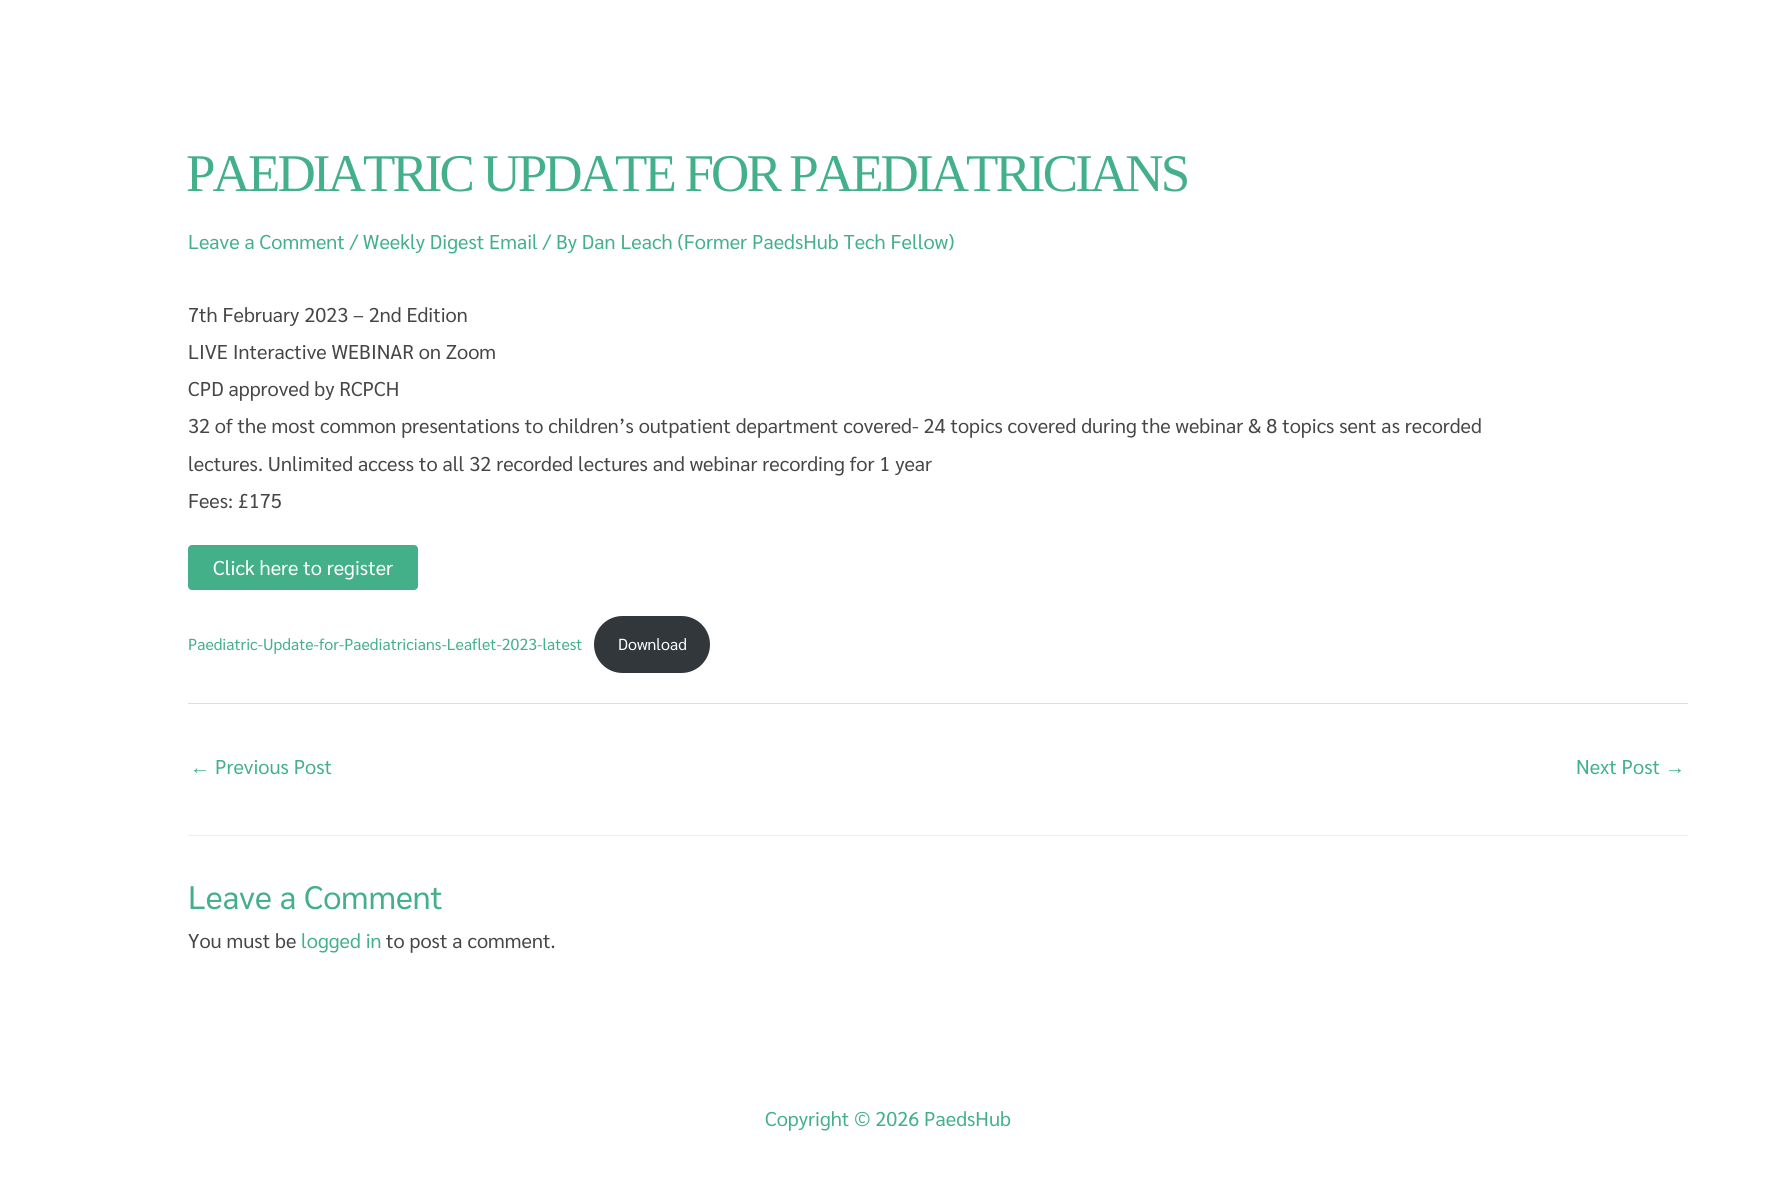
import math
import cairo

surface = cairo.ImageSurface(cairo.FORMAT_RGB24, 1775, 1189)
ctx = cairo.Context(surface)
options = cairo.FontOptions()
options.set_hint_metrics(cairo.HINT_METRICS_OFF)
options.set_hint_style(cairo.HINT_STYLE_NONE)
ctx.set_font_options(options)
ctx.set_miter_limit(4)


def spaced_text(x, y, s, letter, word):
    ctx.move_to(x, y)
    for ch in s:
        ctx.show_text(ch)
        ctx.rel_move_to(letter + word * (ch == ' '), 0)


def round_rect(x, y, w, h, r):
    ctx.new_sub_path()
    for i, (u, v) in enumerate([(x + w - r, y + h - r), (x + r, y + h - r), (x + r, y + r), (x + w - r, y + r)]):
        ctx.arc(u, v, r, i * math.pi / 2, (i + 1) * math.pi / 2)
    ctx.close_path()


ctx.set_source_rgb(1, 1, 1)
ctx.paint()
ctx.select_font_face("Liberation Serif")
ctx.set_font_size(53)
ctx.set_source_rgb(0.263, 0.69, 0.541)
spaced_text(186, 191, "PAEDIATRIC UPDATE FOR PAEDIATRICIANS", -2.9, 0)
ctx.select_font_face("Sarabun")
ctx.set_font_size(20)
ctx.move_to(188, 249)
ctx.show_text("Leave a Comment / Weekly Digest Email / By Dan Leach (Former PaedsHub Tech Fellow)")
ctx.set_source_rgb(0.275, 0.275, 0.275)
ctx.move_to(188, 322)
ctx.show_text("7th February 2023 – 2nd Edition")
ctx.move_to(188, 359)
ctx.show_text("LIVE Interactive WEBINAR on Zoom")
ctx.move_to(188, 396)
ctx.show_text("CPD approved by RCPCH")
ctx.move_to(188, 433)
ctx.show_text("32 of the most common presentations to children’s outpatient department covered- 24 topics covered during the webinar & 8 topics sent as recorded")
ctx.move_to(188, 471)
ctx.show_text("lectures. Unlimited access to all 32 recorded lectures and webinar recording for 1 year")
ctx.move_to(188, 508)
ctx.show_text("Fees: £175")
ctx.set_source_rgb(0.263, 0.69, 0.541)
round_rect(188, 545, 230, 45, 4)
ctx.fill()
ctx.set_source_rgb(1, 1, 1)
ctx.move_to(213, 575)
ctx.show_text("Click here to register")
ctx.set_font_size(16)
ctx.set_source_rgb(0.263, 0.69, 0.541)
ctx.move_to(188, 650)
ctx.show_text("Paediatric-Update-for-Paediatricians-Leaflet-2023-latest")
ctx.set_source_rgb(0.196, 0.216, 0.235)
round_rect(594, 616, 116, 57, 28.5)
ctx.fill()
ctx.set_source_rgb(1, 1, 1)
ctx.move_to(618, 650)
ctx.show_text("Download")
ctx.set_source_rgb(0.867, 0.867, 0.867)
ctx.rectangle(188, 703, 1500, 1)
ctx.fill()
ctx.select_font_face("Liberation Sans")
ctx.set_font_size(20)
ctx.set_source_rgb(0.263, 0.69, 0.541)
ctx.move_to(190, 774)
ctx.show_text("←")
ctx.select_font_face("Sarabun")
ctx.move_to(215, 774)
ctx.show_text("Previous Post")
ctx.move_to(1576, 774)
ctx.show_text("Next Post")
ctx.select_font_face("Liberation Sans")
ctx.move_to(1665, 774)
ctx.show_text("→")
ctx.set_source_rgb(0.933, 0.933, 0.933)
ctx.rectangle(188, 835, 1500, 1)
ctx.fill()
ctx.select_font_face("Sarabun")
ctx.set_font_size(32.5)
ctx.set_source_rgb(0.263, 0.69, 0.541)
ctx.move_to(188, 909)
ctx.show_text("Leave a Comment")
ctx.set_font_size(20)
ctx.set_source_rgb(0.275, 0.275, 0.275)
ctx.move_to(188, 948)
ctx.show_text("You must be")
ctx.set_source_rgb(0.263, 0.69, 0.541)
ctx.move_to(301, 948)
ctx.show_text("logged in")
ctx.set_source_rgb(0.275, 0.275, 0.275)
ctx.move_to(386, 948)
ctx.show_text("to post a comment.")
ctx.set_source_rgb(0.263, 0.69, 0.541)
ctx.move_to(765, 1126)
ctx.show_text("Copyright © 2026 PaedsHub")
surface.write_to_png("page.png")
